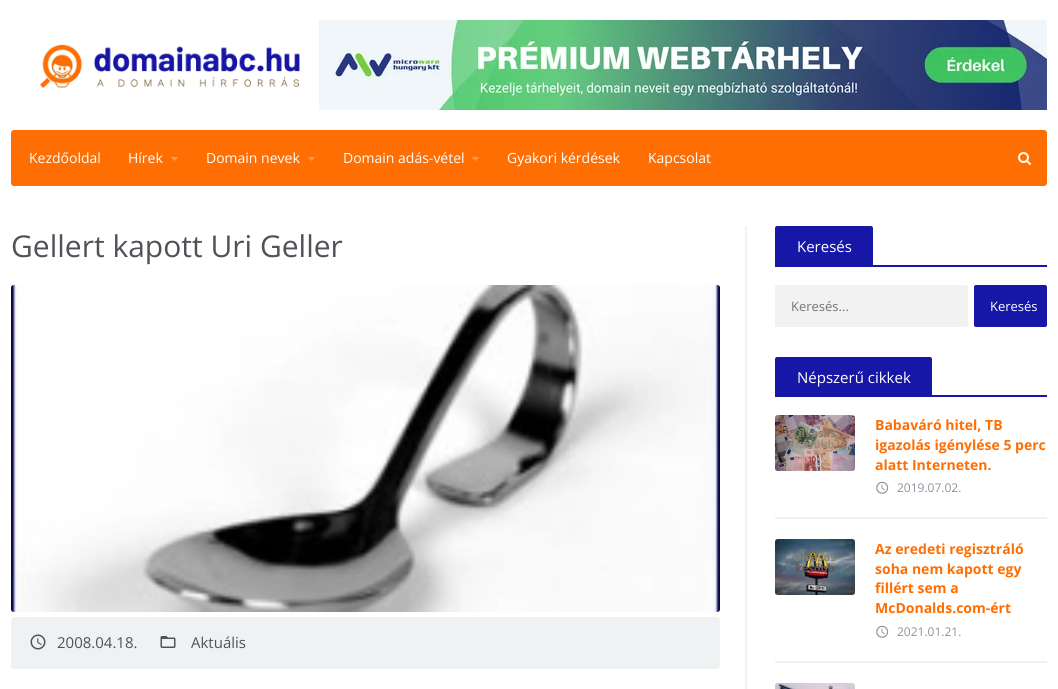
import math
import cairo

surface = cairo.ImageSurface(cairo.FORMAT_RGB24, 1058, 689)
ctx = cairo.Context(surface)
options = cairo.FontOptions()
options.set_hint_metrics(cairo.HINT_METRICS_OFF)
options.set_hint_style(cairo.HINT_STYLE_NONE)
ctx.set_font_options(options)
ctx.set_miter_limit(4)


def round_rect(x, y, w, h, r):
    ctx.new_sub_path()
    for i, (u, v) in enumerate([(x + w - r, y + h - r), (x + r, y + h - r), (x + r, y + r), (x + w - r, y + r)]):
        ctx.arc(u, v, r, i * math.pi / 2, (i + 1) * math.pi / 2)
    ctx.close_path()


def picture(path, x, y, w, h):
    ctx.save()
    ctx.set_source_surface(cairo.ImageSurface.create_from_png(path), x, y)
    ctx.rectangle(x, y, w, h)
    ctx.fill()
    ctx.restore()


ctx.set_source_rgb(1, 1, 1)
ctx.paint()
picture("img1.png", 39, 44, 261, 44)
picture("img2.png", 319, 20, 728, 90)
ctx.set_source_rgb(1, 0.431, 0.012)
round_rect(11, 130, 1036, 56, 3)
ctx.fill()
ctx.select_font_face("Open Sans")
ctx.set_font_size(14)
ctx.set_source_rgb(1, 1, 1)
ctx.move_to(29, 163)
ctx.show_text("Kezdőoldal")
ctx.move_to(128, 163)
ctx.show_text("Hírek")
picture("img3.png", 171, 157, 7, 4)
ctx.move_to(206, 163)
ctx.show_text("Domain nevek")
picture("img3.png", 308, 157, 7, 4)
ctx.move_to(343, 163)
ctx.show_text("Domain adás-vétel")
picture("img3.png", 472, 157, 7, 4)
ctx.move_to(507, 163)
ctx.show_text("Gyakori kérdések")
ctx.move_to(648, 163)
ctx.show_text("Kapcsolat")
picture("img4.png", 1018, 152, 13, 13)
ctx.set_font_size(30)
ctx.set_source_rgb(0.31, 0.325, 0.341)
ctx.move_to(11, 257)
ctx.show_text("Gellert kapott Uri Geller")
picture("img5.png", 11, 285, 709, 327)
ctx.set_source_rgb(0.941, 0.945, 0.949)
round_rect(11, 617, 709, 52, 3)
ctx.fill()
picture("img6.png", 30, 634, 16, 16)
ctx.set_font_size(15)
ctx.set_source_rgb(0.31, 0.325, 0.341)
ctx.move_to(57, 648)
ctx.show_text("2008.04.18.")
picture("img7.png", 160, 636, 16, 12)
ctx.move_to(191, 648)
ctx.show_text("Aktuális")
ctx.set_source_rgb(0.949, 0.949, 0.949)
ctx.rectangle(745, 226, 2, 463)
ctx.fill()
ctx.set_source_rgb(0.086, 0.086, 0.655)
ctx.new_path()
ctx.move_to(777, 226)
ctx.line_to(871, 226)
ctx.curve_to(872, 226, 873, 227, 873, 228)
ctx.line_to(873, 265)
ctx.line_to(775, 265)
ctx.line_to(775, 228)
ctx.curve_to(775, 227, 776, 226, 777, 226)
ctx.close_path()
ctx.fill()
ctx.set_source_rgb(1, 1, 1)
ctx.move_to(797, 252)
ctx.show_text("Keresés")
ctx.set_source_rgb(0.086, 0.086, 0.655)
ctx.rectangle(775, 265, 272, 2)
ctx.fill()
ctx.set_source_rgb(0.949, 0.949, 0.949)
round_rect(775, 285, 193, 42, 2)
ctx.fill()
ctx.set_font_size(13)
ctx.set_source_rgb(0.459, 0.459, 0.459)
ctx.move_to(791, 311)
ctx.show_text("Keresés...")
ctx.set_source_rgb(0.086, 0.086, 0.655)
round_rect(974, 285, 73, 42, 2)
ctx.fill()
ctx.set_source_rgb(1, 1, 1)
ctx.move_to(990, 311)
ctx.show_text("Keresés")
ctx.set_source_rgb(0.086, 0.086, 0.655)
ctx.new_path()
ctx.move_to(777, 357)
ctx.line_to(930, 357)
ctx.curve_to(931, 357, 932, 358, 932, 359)
ctx.line_to(932, 395)
ctx.line_to(775, 395)
ctx.line_to(775, 359)
ctx.curve_to(775, 358, 776, 357, 777, 357)
ctx.close_path()
ctx.fill()
ctx.set_font_size(15)
ctx.set_source_rgb(1, 1, 1)
ctx.move_to(797, 383)
ctx.show_text("Népszerű cikkek")
ctx.set_source_rgb(0.086, 0.086, 0.655)
ctx.rectangle(775, 395, 272, 2)
ctx.fill()
ctx.set_source_rgb(0.949, 0.949, 0.949)
ctx.rectangle(775, 517, 272, 2)
ctx.fill()
picture("img8.png", 775, 415, 80, 56)
ctx.select_font_face("Open Sans", cairo.FONT_SLANT_NORMAL, cairo.FONT_WEIGHT_BOLD)
ctx.set_font_size(11)
ctx.set_source_rgb(0.533, 0.494, 0.424)
ctx.move_to(793, 437)
ctx.show_text("Olvasás")
ctx.set_source_rgb(0.624, 0.569, 0.51)
ctx.move_to(795, 448)
ctx.show_text("később")
ctx.set_font_size(14)
ctx.set_source_rgb(1, 0.431, 0.012)
ctx.move_to(875, 430)
ctx.show_text("Babaváró hitel, TB")
ctx.move_to(875, 450)
ctx.show_text("igazolás igénylése 5 perc")
ctx.move_to(875, 470)
ctx.show_text("alatt Interneten.")
picture("img9.png", 876, 481, 13, 13)
ctx.select_font_face("Open Sans")
ctx.set_font_size(12)
ctx.set_source_rgb(0.545, 0.58, 0.616)
ctx.move_to(897, 492)
ctx.show_text("2019.07.02.")
ctx.set_source_rgb(0.949, 0.949, 0.949)
ctx.rectangle(775, 661, 272, 2)
ctx.fill()
picture("img10.png", 775, 539, 80, 56)
ctx.select_font_face("Open Sans", cairo.FONT_SLANT_NORMAL, cairo.FONT_WEIGHT_BOLD)
ctx.set_font_size(11)
ctx.set_source_rgb(0.506, 0.51, 0.435)
ctx.move_to(793, 561)
ctx.show_text("Olvasás")
ctx.set_source_rgb(0.388, 0.333, 0.322)
ctx.move_to(795, 572)
ctx.show_text("később")
ctx.set_font_size(14)
ctx.set_source_rgb(1, 0.431, 0.012)
ctx.move_to(875, 554)
ctx.show_text("Az eredeti regisztráló")
ctx.move_to(875, 574)
ctx.show_text("soha nem kapott egy")
ctx.move_to(875, 593)
ctx.show_text("fillért sem a")
ctx.move_to(875, 613)
ctx.show_text("McDonalds.com-ért")
picture("img9.png", 876, 625, 13, 13)
ctx.select_font_face("Open Sans")
ctx.set_font_size(12)
ctx.set_source_rgb(0.545, 0.58, 0.616)
ctx.move_to(897, 636)
ctx.show_text("2021.01.21.")
picture("img11.png", 775, 683, 80, 6)
surface.write_to_png("page.png")
